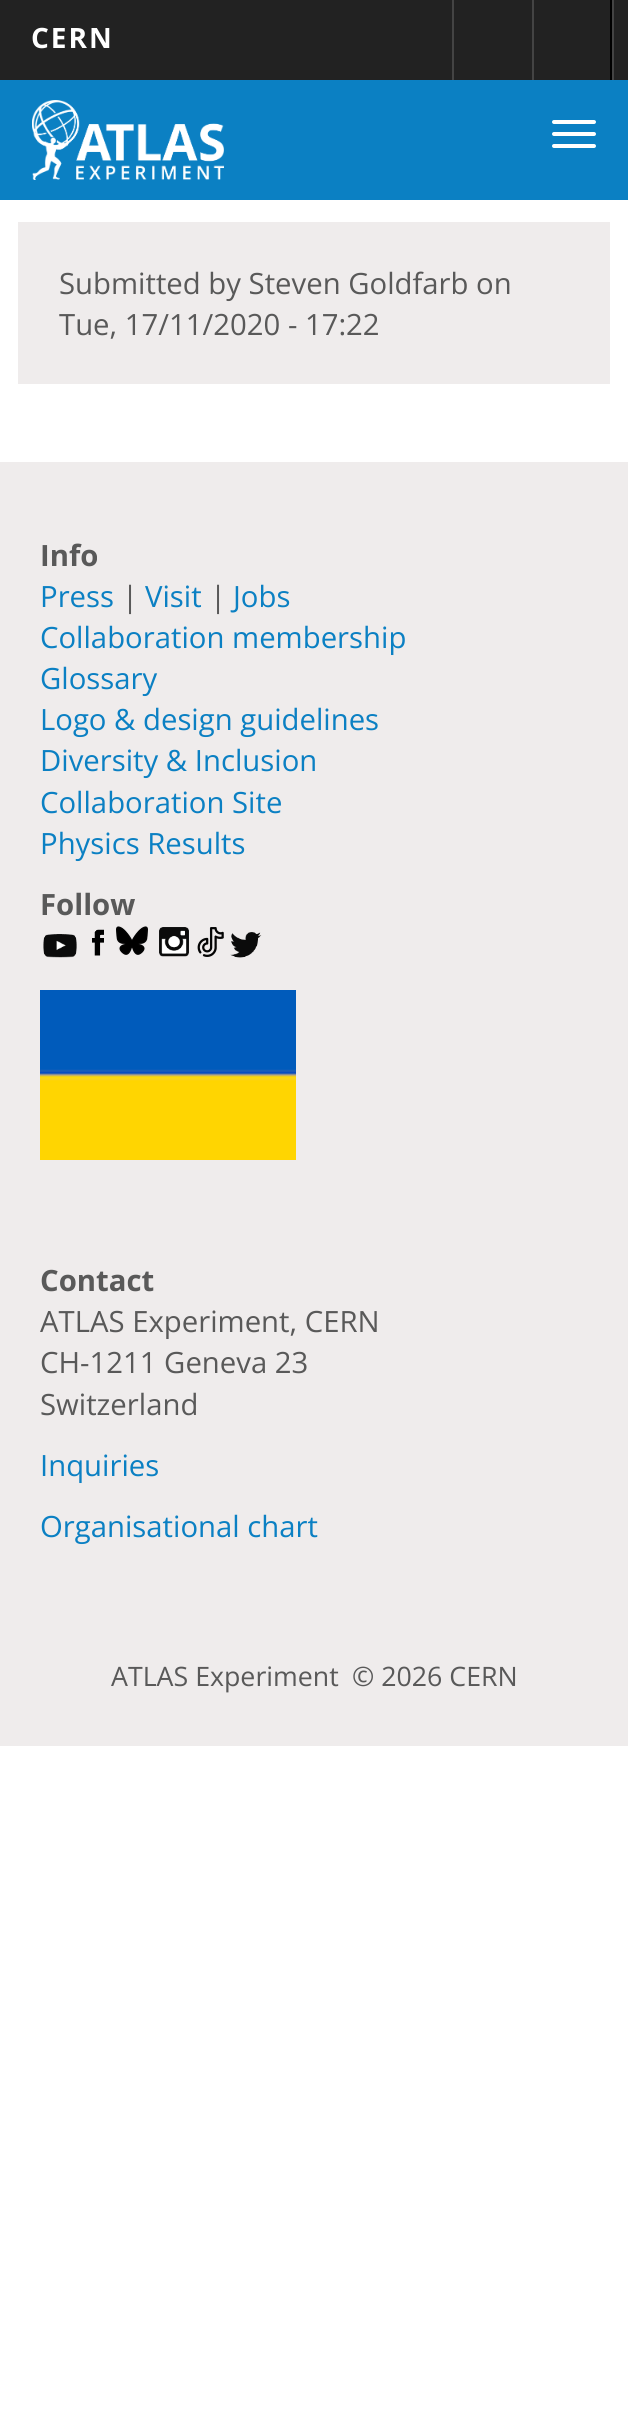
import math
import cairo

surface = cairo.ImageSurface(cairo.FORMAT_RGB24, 628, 2428)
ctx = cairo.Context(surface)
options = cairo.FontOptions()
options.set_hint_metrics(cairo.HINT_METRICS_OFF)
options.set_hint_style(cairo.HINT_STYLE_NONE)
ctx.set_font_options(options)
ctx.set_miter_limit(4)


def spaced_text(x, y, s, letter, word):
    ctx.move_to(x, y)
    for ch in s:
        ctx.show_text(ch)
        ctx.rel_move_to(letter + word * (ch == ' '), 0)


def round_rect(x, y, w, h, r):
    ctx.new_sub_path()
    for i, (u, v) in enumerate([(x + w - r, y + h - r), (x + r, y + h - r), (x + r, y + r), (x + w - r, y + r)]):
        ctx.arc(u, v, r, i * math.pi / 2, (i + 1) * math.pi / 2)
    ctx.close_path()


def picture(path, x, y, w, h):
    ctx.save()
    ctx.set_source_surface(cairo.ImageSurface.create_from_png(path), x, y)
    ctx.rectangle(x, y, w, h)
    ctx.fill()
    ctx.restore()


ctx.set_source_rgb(1, 1, 1)
ctx.paint()
ctx.set_source_rgb(0.133, 0.133, 0.133)
ctx.rectangle(0, 0, 628, 80)
ctx.fill()
ctx.select_font_face("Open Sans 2", cairo.FONT_SLANT_NORMAL, cairo.FONT_WEIGHT_BOLD)
ctx.set_font_size(28)
ctx.set_source_rgb(1, 1, 1)
spaced_text(31, 48, "CERN", 2, 0)
ctx.set_source_rgb(0.267, 0.267, 0.267)
ctx.rectangle(452, 0, 2, 80)
ctx.fill()
ctx.rectangle(612, 0, 2, 80)
ctx.fill()
ctx.set_source_rgb(0, 0, 0)
ctx.rectangle(610, 0, 2, 80)
ctx.fill()
ctx.set_source_rgb(0.267, 0.267, 0.267)
ctx.rectangle(532, 0, 2, 80)
ctx.fill()
ctx.set_source_rgb(0.043, 0.502, 0.765)
ctx.rectangle(0, 80, 628, 120)
ctx.fill()
picture("img1.png", 32, 100, 192, 80)
ctx.set_source_rgb(1, 1, 0.996)
round_rect(552, 120, 44, 4, 2)
ctx.fill()
round_rect(552, 132, 44, 4, 2)
ctx.fill()
round_rect(552, 144, 44, 4, 2)
ctx.fill()
ctx.set_source_rgb(0.937, 0.925, 0.922)
ctx.rectangle(18, 222, 592, 162)
ctx.fill()
ctx.select_font_face("Open Sans")
ctx.set_font_size(29.3)
ctx.set_source_rgb(0.349, 0.349, 0.349)
ctx.move_to(59, 294)
ctx.show_text("Submitted by Steven Goldfarb on")
ctx.move_to(59, 335)
ctx.show_text("Tue, 17/11/2020 - 17:22")
ctx.set_source_rgb(0.937, 0.925, 0.922)
ctx.rectangle(0, 462, 628, 1284)
ctx.fill()
ctx.select_font_face("Open Sans", cairo.FONT_SLANT_NORMAL, cairo.FONT_WEIGHT_BOLD)
ctx.set_source_rgb(0.349, 0.349, 0.349)
ctx.move_to(40, 566)
ctx.show_text("Info")
ctx.select_font_face("Open Sans")
ctx.set_source_rgb(0.043, 0.502, 0.765)
ctx.move_to(40, 607)
ctx.show_text("Press")
ctx.set_source_rgb(0.349, 0.349, 0.349)
ctx.move_to(122, 607)
ctx.show_text("|")
ctx.set_source_rgb(0.043, 0.502, 0.765)
ctx.move_to(145, 607)
ctx.show_text("Visit")
ctx.set_source_rgb(0.349, 0.349, 0.349)
ctx.move_to(210, 607)
ctx.show_text("|")
ctx.set_source_rgb(0.043, 0.502, 0.765)
ctx.move_to(233, 607)
ctx.show_text("Jobs")
ctx.move_to(40, 648)
ctx.show_text("Collaboration membership")
ctx.move_to(40, 689)
ctx.show_text("Glossary")
ctx.move_to(40, 730)
ctx.show_text("Logo & design guidelines")
ctx.move_to(40, 771)
ctx.show_text("Diversity & Inclusion")
ctx.move_to(40, 813)
ctx.show_text("Collaboration Site")
ctx.move_to(40, 854)
ctx.show_text("Physics Results")
ctx.select_font_face("Open Sans", cairo.FONT_SLANT_NORMAL, cairo.FONT_WEIGHT_BOLD)
ctx.set_source_rgb(0.349, 0.349, 0.349)
ctx.move_to(40, 915)
ctx.show_text("Follow")
picture("img2.png", 43, 934, 34, 24)
picture("img3.png", 92, 929, 12, 27)
picture("img4.png", 116, 926, 32, 29)
picture("img5.png", 159, 927, 30, 30)
picture("img6.png", 197, 927, 27, 30)
picture("img7.png", 230, 932, 32, 26)
picture("img8.png", 40, 990, 256, 170)
ctx.move_to(40, 1291)
ctx.show_text("Contact")
ctx.select_font_face("Open Sans")
ctx.move_to(40, 1332)
ctx.show_text("ATLAS Experiment, CERN")
ctx.move_to(40, 1373)
ctx.show_text("CH-1211 Geneva 23")
ctx.move_to(40, 1415)
ctx.show_text("Switzerland")
ctx.set_source_rgb(0.043, 0.502, 0.765)
ctx.move_to(40, 1476)
ctx.show_text("Inquiries")
ctx.move_to(40, 1537)
ctx.show_text("Organisational chart")
ctx.set_font_size(26.75)
ctx.set_source_rgb(0.349, 0.349, 0.349)
ctx.move_to(111, 1686)
ctx.show_text("ATLAS Experiment")
ctx.move_to(352, 1686)
ctx.show_text("© 2026 CERN")
surface.write_to_png("page.png")
